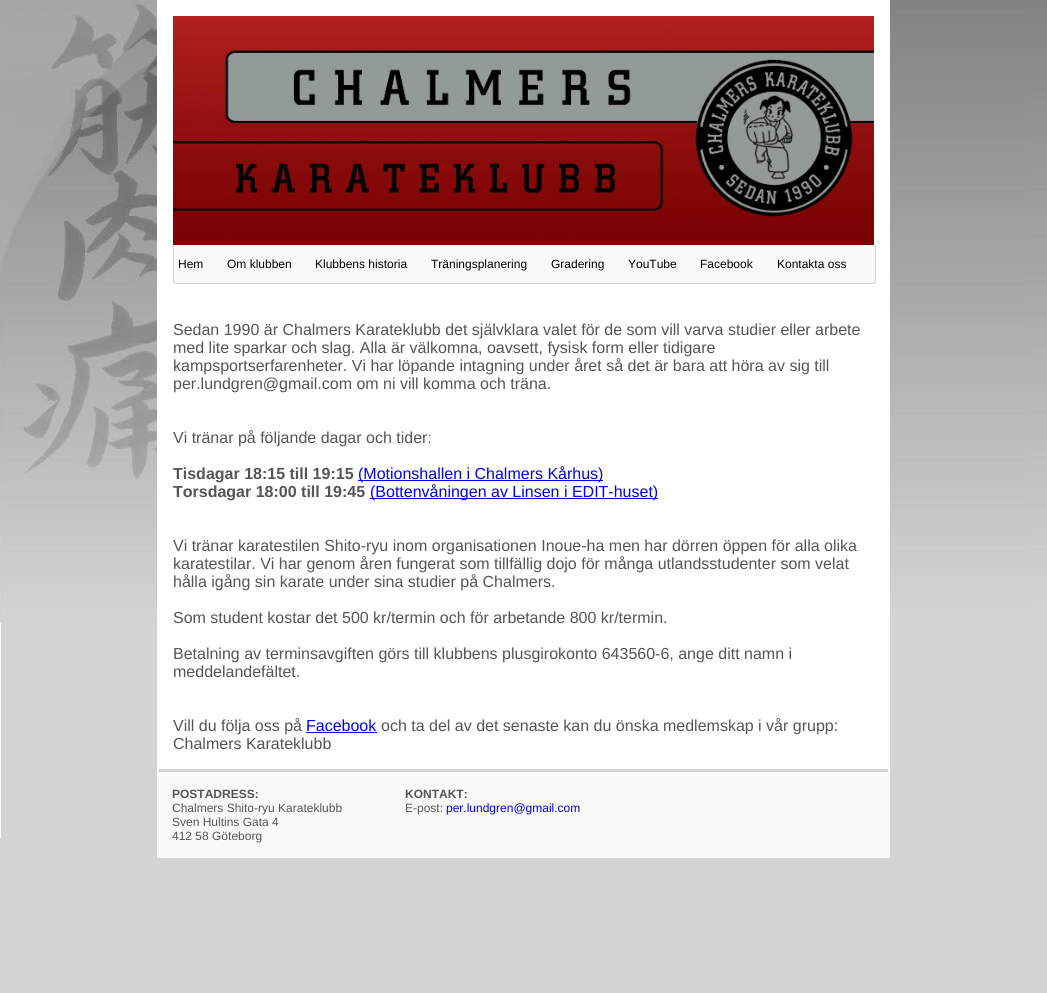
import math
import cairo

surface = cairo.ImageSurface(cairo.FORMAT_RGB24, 1047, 993)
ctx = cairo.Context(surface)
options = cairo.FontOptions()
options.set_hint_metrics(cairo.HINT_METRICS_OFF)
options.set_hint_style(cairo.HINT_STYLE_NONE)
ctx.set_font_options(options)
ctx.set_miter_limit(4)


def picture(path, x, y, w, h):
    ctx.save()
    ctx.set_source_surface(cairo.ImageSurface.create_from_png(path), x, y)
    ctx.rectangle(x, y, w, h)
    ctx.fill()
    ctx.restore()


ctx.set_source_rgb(0.831, 0.831, 0.831)
ctx.paint()
picture("img1.png", 0, 0, 1047, 838)
ctx.set_source_rgb(1, 1, 1)
ctx.rectangle(157, 0, 733, 773)
ctx.fill()
picture("img2.png", 173, 16, 701, 229)
ctx.set_source_rgb(0.976, 0.976, 0.976)
ctx.new_path()
ctx.move_to(174, 245)
ctx.line_to(875, 245)
ctx.line_to(875, 280.5)
ctx.curve_to(875, 282, 874, 283, 872.5, 283)
ctx.line_to(176.5, 283)
ctx.curve_to(175, 283, 174, 282, 174, 280.5)
ctx.close_path()
ctx.fill()
ctx.set_source_rgb(0.827, 0.827, 0.827)
ctx.set_fill_rule(cairo.FILL_RULE_EVEN_ODD)
ctx.new_path()
ctx.move_to(173, 245)
ctx.line_to(876, 245)
ctx.line_to(876, 281)
ctx.curve_to(876, 283, 874, 284, 872, 284)
ctx.line_to(177, 284)
ctx.curve_to(175, 284, 173, 283, 173, 281)
ctx.close_path()
ctx.move_to(174, 245)
ctx.line_to(875, 245)
ctx.line_to(875, 281)
ctx.curve_to(875, 282, 874, 283, 872, 283)
ctx.line_to(177, 283)
ctx.curve_to(175, 283, 174, 282, 174, 281)
ctx.close_path()
ctx.fill()
ctx.select_font_face("Liberation Sans")
ctx.set_font_size(12)
ctx.set_source_rgb(0, 0, 0)
ctx.move_to(178, 268)
ctx.show_text("Hem")
ctx.move_to(227, 268)
ctx.show_text("Om klubben")
ctx.move_to(315, 268)
ctx.show_text("Klubbens historia")
ctx.move_to(431, 268)
ctx.show_text("Träningsplanering")
ctx.move_to(551, 268)
ctx.show_text("Gradering")
ctx.move_to(628, 268)
ctx.show_text("YouTube")
ctx.move_to(700, 268)
ctx.show_text("Facebook")
ctx.move_to(777, 268)
ctx.show_text("Kontakta oss")
ctx.set_font_size(16)
ctx.set_source_rgb(0.333, 0.333, 0.333)
ctx.move_to(173, 335)
ctx.show_text("Sedan 1990 är Chalmers Karateklubb det självklara valet för de som vill varva studier eller arbete")
ctx.move_to(173, 353)
ctx.show_text("med lite sparkar och slag. Alla är välkomna, oavsett, fysisk form eller tidigare")
ctx.move_to(173, 371)
ctx.show_text("kampsportserfarenheter. Vi har löpande intagning under året så det är bara att höra av sig till")
ctx.move_to(173, 389)
ctx.show_text("per.lundgren@gmail.com om ni vill komma och träna.")
ctx.move_to(173, 443)
ctx.show_text("Vi tränar på följande dagar och tider:")
ctx.select_font_face("Liberation Sans", cairo.FONT_SLANT_NORMAL, cairo.FONT_WEIGHT_BOLD)
ctx.move_to(173, 479)
ctx.show_text("Tisdagar 18:15 till 19:15")
ctx.set_source_rgb(0, 0, 0.933)
ctx.rectangle(358, 480, 245, 1)
ctx.fill()
ctx.select_font_face("Liberation Sans")
ctx.move_to(358, 479)
ctx.show_text("(Motionshallen i Chalmers Kårhus)")
ctx.select_font_face("Liberation Sans", cairo.FONT_SLANT_NORMAL, cairo.FONT_WEIGHT_BOLD)
ctx.set_source_rgb(0.333, 0.333, 0.333)
ctx.move_to(173, 497)
ctx.show_text("Torsdagar 18:00 till 19:45")
ctx.set_source_rgb(0, 0, 0.933)
ctx.rectangle(370, 498, 288, 1)
ctx.fill()
ctx.select_font_face("Liberation Sans")
ctx.move_to(370, 497)
ctx.show_text("(Bottenvåningen av Linsen i EDIT-huset)")
ctx.set_source_rgb(0.333, 0.333, 0.333)
ctx.move_to(173, 551)
ctx.show_text("Vi tränar karatestilen Shito-ryu inom organisationen Inoue-ha men har dörren öppen för alla olika")
ctx.move_to(173, 569)
ctx.show_text("karatestilar. Vi har genom åren fungerat som tillfällig dojo för många utlandsstudenter som velat")
ctx.move_to(173, 587)
ctx.show_text("hålla igång sin karate under sina studier på Chalmers.")
ctx.move_to(173, 623)
ctx.show_text("Som student kostar det 500 kr/termin och för arbetande 800 kr/termin.")
ctx.move_to(173, 659)
ctx.show_text("Betalning av terminsavgiften görs till klubbens plusgirokonto 643560-6, ange ditt namn i")
ctx.move_to(173, 677)
ctx.show_text("meddelandefältet.")
ctx.move_to(173, 731)
ctx.show_text("Vill du följa oss på")
ctx.set_source_rgb(0, 0, 0.933)
ctx.move_to(306, 731)
ctx.show_text("Facebook")
ctx.rectangle(306, 732, 71, 1)
ctx.fill()
ctx.set_source_rgb(0.333, 0.333, 0.333)
ctx.move_to(381, 731)
ctx.show_text("och ta del av det senaste kan du önska medlemskap i vår grupp:")
ctx.move_to(173, 749)
ctx.show_text("Chalmers Karateklubb")
ctx.set_source_rgb(0.976, 0.976, 0.976)
ctx.new_path()
ctx.move_to(161, 769)
ctx.line_to(886, 769)
ctx.curve_to(888, 769, 890, 771, 890, 773)
ctx.line_to(890, 858)
ctx.line_to(157, 858)
ctx.line_to(157, 773)
ctx.curve_to(157, 771, 159, 769, 161, 769)
ctx.close_path()
ctx.fill()
ctx.set_source_rgb(0.827, 0.827, 0.827)
ctx.rectangle(159, 769, 729, 3)
ctx.fill()
ctx.select_font_face("Liberation Sans", cairo.FONT_SLANT_NORMAL, cairo.FONT_WEIGHT_BOLD)
ctx.set_font_size(12)
ctx.set_source_rgb(0.333, 0.333, 0.333)
ctx.move_to(172, 798)
ctx.show_text("POSTADRESS:")
ctx.select_font_face("Liberation Sans")
ctx.move_to(172, 812)
ctx.show_text("Chalmers Shito-ryu Karateklubb")
ctx.move_to(172, 826)
ctx.show_text("Sven Hultins Gata 4")
ctx.move_to(172, 840)
ctx.show_text("412 58 Göteborg")
ctx.select_font_face("Liberation Sans", cairo.FONT_SLANT_NORMAL, cairo.FONT_WEIGHT_BOLD)
ctx.move_to(405, 798)
ctx.show_text("KONTAKT:")
ctx.select_font_face("Liberation Sans")
ctx.move_to(405, 812)
ctx.show_text("E-post:")
ctx.set_source_rgb(0, 0, 0.933)
ctx.move_to(446, 812)
ctx.show_text("per.lundgren@gmail.com")
surface.write_to_png("page.png")
